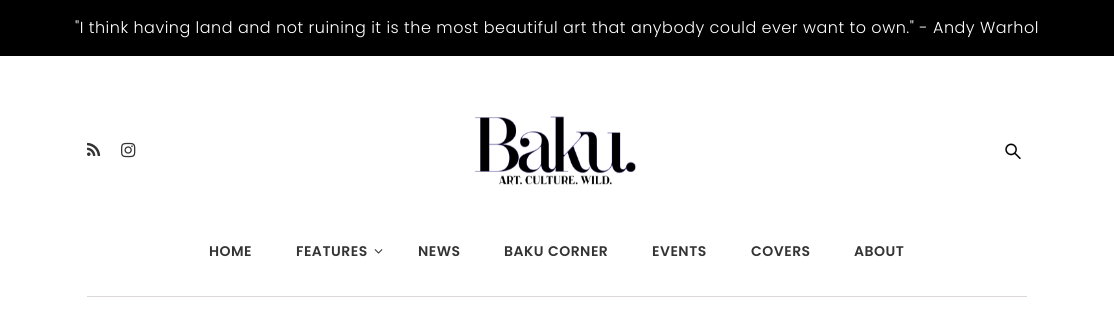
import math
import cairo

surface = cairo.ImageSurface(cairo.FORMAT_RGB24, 1114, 315)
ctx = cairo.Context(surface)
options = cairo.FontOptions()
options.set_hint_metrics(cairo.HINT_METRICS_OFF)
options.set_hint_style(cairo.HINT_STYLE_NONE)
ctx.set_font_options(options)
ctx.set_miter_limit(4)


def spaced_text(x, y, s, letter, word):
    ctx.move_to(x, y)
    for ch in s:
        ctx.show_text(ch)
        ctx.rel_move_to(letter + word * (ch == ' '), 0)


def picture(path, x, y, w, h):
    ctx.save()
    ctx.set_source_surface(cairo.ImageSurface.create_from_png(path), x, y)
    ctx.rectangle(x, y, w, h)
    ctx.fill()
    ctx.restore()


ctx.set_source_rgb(1, 1, 1)
ctx.paint()
ctx.set_source_rgb(0, 0, 0)
ctx.rectangle(0, 0, 1114, 56)
ctx.fill()
ctx.select_font_face("Poppins Light")
ctx.set_font_size(16)
ctx.set_source_rgb(1, 1, 1)
spaced_text(75, 33, "\"I think having land and not ruining it is the most beautiful art that anybody could ever want to own.\" - Andy Warhol", 0.5, 0)
picture("img1.png", 87, 142, 14, 14)
picture("img2.png", 121, 142, 15, 16)
picture("img3.png", 475, 116, 161, 70)
picture("img4.png", 1005, 143, 16, 17)
ctx.set_source_rgb(0.863, 0.847, 0.847)
ctx.rectangle(87, 296, 940, 1)
ctx.fill()
ctx.select_font_face("Poppins SemiBold")
ctx.set_font_size(14)
ctx.set_source_rgb(0.2, 0.2, 0.2)
spaced_text(209, 256, "HOME", 0.5, 0)
spaced_text(296, 256, "FEATURES", 0.5, 0)
picture("img5.png", 374, 249, 9, 5)
spaced_text(418, 256, "NEWS", 0.5, 0)
spaced_text(504, 256, "BAKU CORNER", 0.5, 0)
spaced_text(652, 256, "EVENTS", 0.5, 0)
spaced_text(751, 256, "COVERS", 0.5, 0)
spaced_text(854, 256, "ABOUT", 0.5, 0)
surface.write_to_png("page.png")
